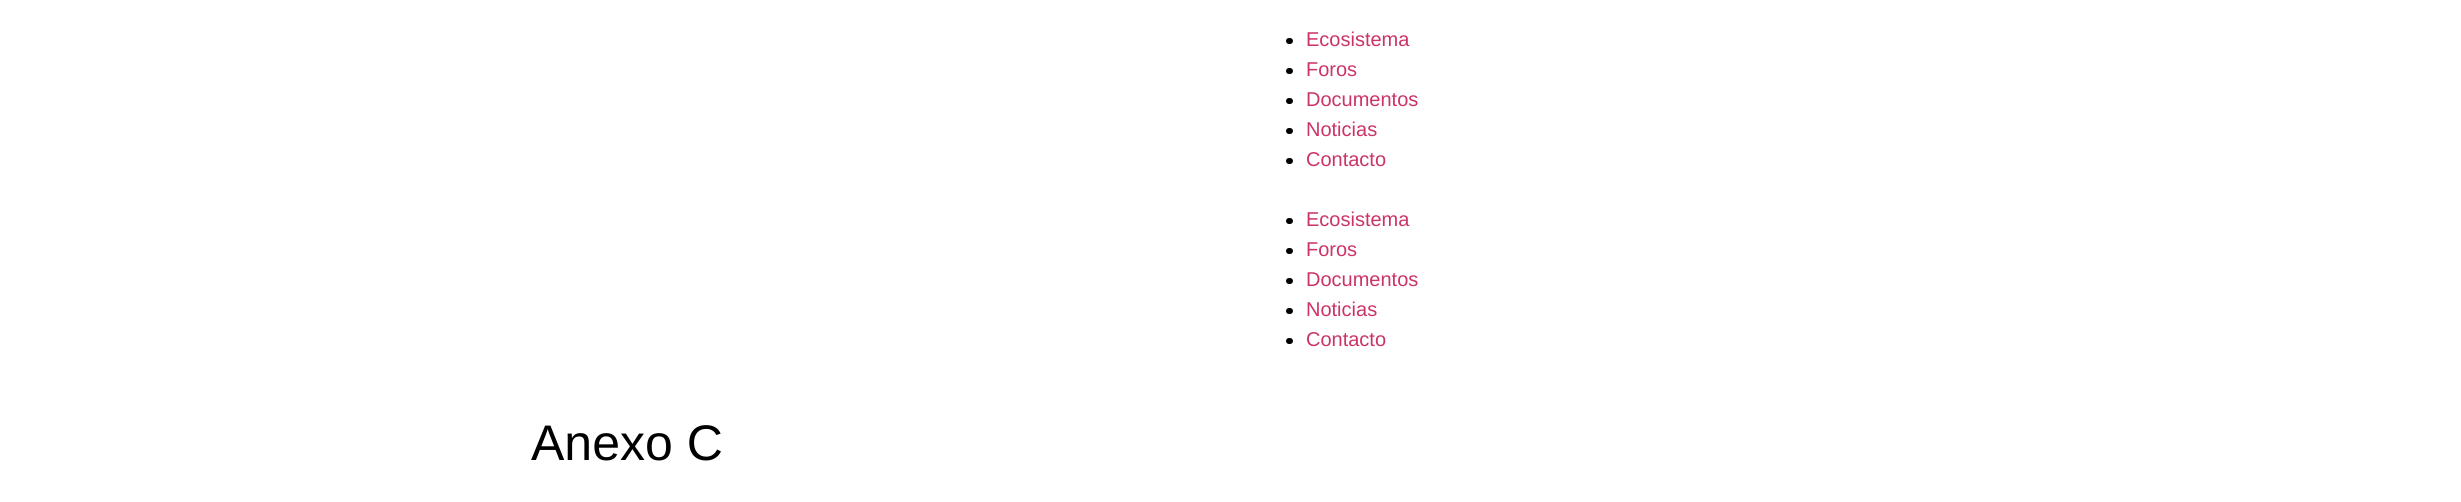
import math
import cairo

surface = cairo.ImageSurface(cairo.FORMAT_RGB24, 2461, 502)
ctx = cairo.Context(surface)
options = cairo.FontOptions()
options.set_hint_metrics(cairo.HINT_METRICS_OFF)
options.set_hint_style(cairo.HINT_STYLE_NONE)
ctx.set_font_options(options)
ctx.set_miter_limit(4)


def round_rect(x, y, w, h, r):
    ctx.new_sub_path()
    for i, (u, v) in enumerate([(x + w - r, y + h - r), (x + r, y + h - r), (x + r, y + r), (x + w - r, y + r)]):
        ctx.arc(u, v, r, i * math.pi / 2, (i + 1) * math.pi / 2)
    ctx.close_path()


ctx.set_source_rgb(1, 1, 1)
ctx.paint()
ctx.set_source_rgb(0, 0, 0)
round_rect(1286, 38, 7, 6, 3)
ctx.fill()
ctx.select_font_face("Liberation Sans")
ctx.set_font_size(20)
ctx.set_source_rgb(0.8, 0.2, 0.4)
ctx.move_to(1306, 46)
ctx.show_text("Ecosistema")
ctx.set_source_rgb(0, 0, 0)
round_rect(1286, 68, 7, 6, 3)
ctx.fill()
ctx.set_source_rgb(0.8, 0.2, 0.4)
ctx.move_to(1306, 76)
ctx.show_text("Foros")
ctx.set_source_rgb(0, 0, 0)
round_rect(1286, 98, 7, 6, 3)
ctx.fill()
ctx.set_source_rgb(0.8, 0.2, 0.4)
ctx.move_to(1306, 106)
ctx.show_text("Documentos")
ctx.set_source_rgb(0, 0, 0)
round_rect(1286, 128, 7, 6, 3)
ctx.fill()
ctx.set_source_rgb(0.8, 0.2, 0.4)
ctx.move_to(1306, 136)
ctx.show_text("Noticias")
ctx.set_source_rgb(0, 0, 0)
round_rect(1286, 158, 7, 6, 3)
ctx.fill()
ctx.set_source_rgb(0.8, 0.2, 0.4)
ctx.move_to(1306, 166)
ctx.show_text("Contacto")
ctx.set_source_rgb(0, 0, 0)
round_rect(1286, 218, 7, 6, 3)
ctx.fill()
ctx.set_source_rgb(0.8, 0.2, 0.4)
ctx.move_to(1306, 226)
ctx.show_text("Ecosistema")
ctx.set_source_rgb(0, 0, 0)
round_rect(1286, 248, 7, 6, 3)
ctx.fill()
ctx.set_source_rgb(0.8, 0.2, 0.4)
ctx.move_to(1306, 256)
ctx.show_text("Foros")
ctx.set_source_rgb(0, 0, 0)
round_rect(1286, 278, 7, 6, 3)
ctx.fill()
ctx.set_source_rgb(0.8, 0.2, 0.4)
ctx.move_to(1306, 286)
ctx.show_text("Documentos")
ctx.set_source_rgb(0, 0, 0)
round_rect(1286, 308, 7, 6, 3)
ctx.fill()
ctx.set_source_rgb(0.8, 0.2, 0.4)
ctx.move_to(1306, 316)
ctx.show_text("Noticias")
ctx.set_source_rgb(0, 0, 0)
round_rect(1286, 338, 7, 6, 3)
ctx.fill()
ctx.set_source_rgb(0.8, 0.2, 0.4)
ctx.move_to(1306, 346)
ctx.show_text("Contacto")
ctx.set_font_size(50)
ctx.set_source_rgb(0, 0, 0)
ctx.move_to(531, 460)
ctx.show_text("Anexo C")
surface.write_to_png("page.png")
